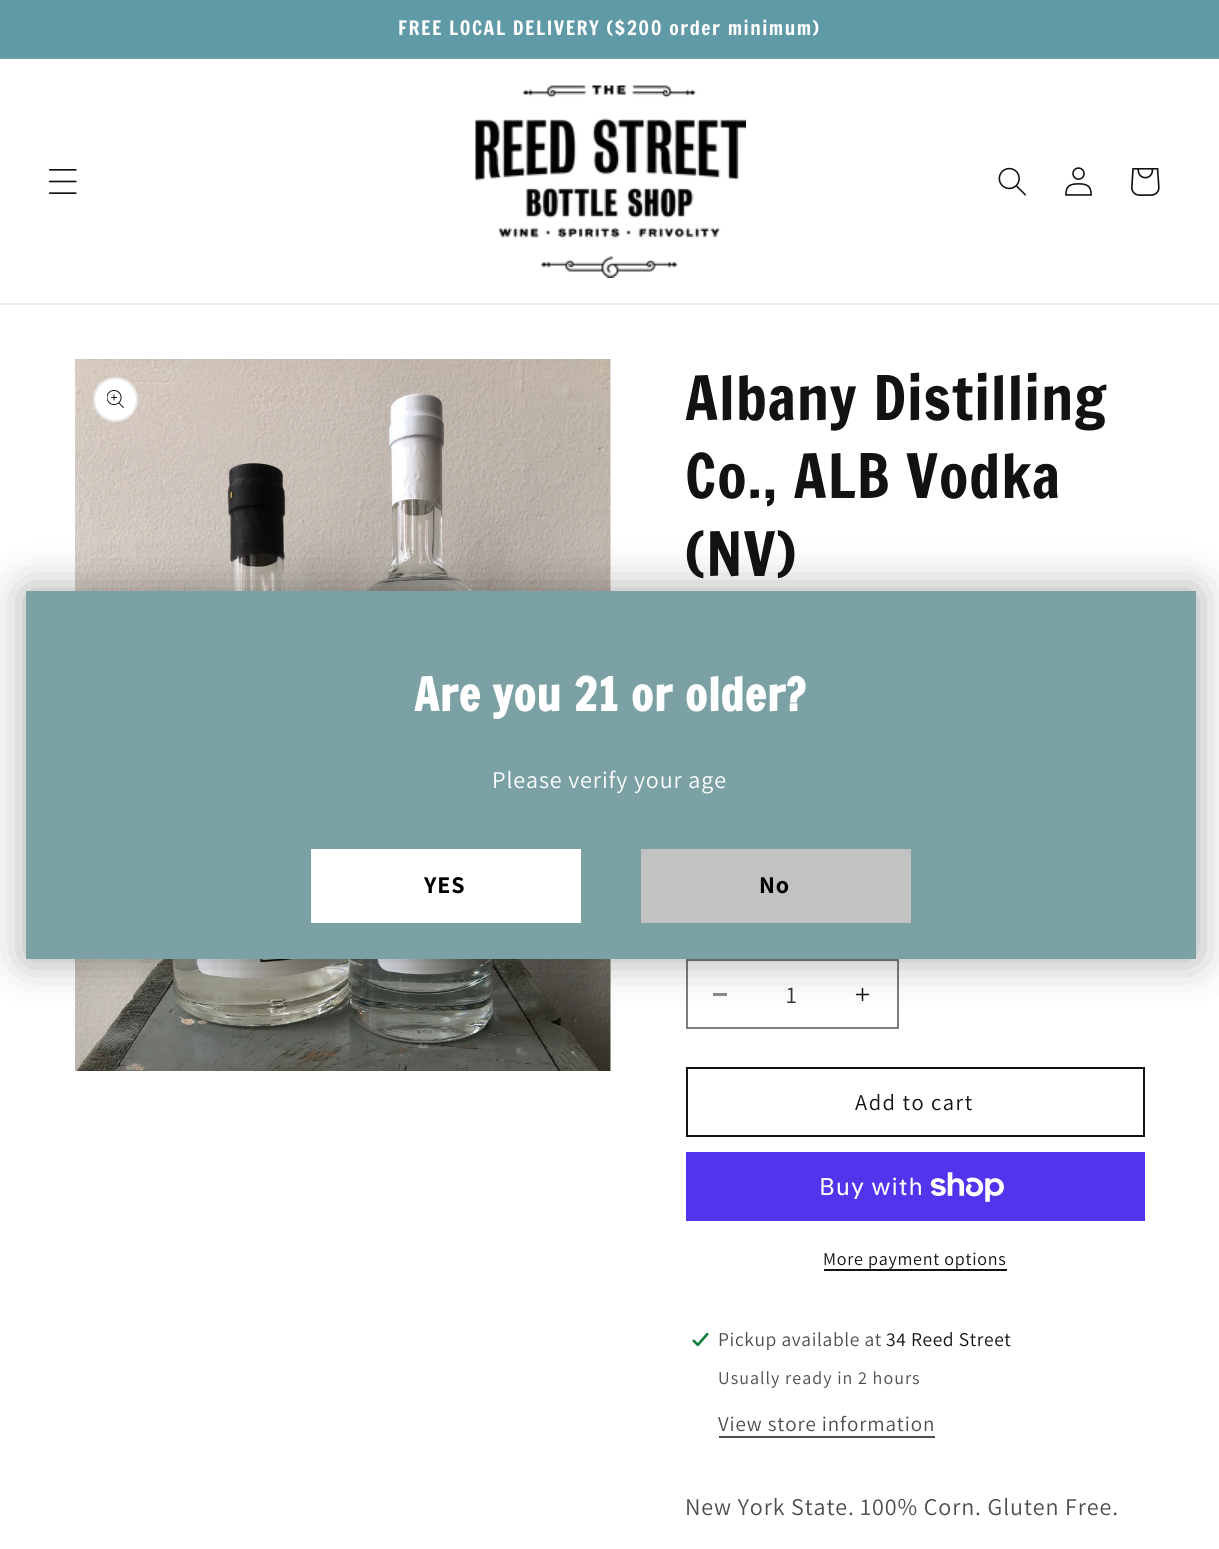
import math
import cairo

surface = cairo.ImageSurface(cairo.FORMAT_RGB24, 1219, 1549)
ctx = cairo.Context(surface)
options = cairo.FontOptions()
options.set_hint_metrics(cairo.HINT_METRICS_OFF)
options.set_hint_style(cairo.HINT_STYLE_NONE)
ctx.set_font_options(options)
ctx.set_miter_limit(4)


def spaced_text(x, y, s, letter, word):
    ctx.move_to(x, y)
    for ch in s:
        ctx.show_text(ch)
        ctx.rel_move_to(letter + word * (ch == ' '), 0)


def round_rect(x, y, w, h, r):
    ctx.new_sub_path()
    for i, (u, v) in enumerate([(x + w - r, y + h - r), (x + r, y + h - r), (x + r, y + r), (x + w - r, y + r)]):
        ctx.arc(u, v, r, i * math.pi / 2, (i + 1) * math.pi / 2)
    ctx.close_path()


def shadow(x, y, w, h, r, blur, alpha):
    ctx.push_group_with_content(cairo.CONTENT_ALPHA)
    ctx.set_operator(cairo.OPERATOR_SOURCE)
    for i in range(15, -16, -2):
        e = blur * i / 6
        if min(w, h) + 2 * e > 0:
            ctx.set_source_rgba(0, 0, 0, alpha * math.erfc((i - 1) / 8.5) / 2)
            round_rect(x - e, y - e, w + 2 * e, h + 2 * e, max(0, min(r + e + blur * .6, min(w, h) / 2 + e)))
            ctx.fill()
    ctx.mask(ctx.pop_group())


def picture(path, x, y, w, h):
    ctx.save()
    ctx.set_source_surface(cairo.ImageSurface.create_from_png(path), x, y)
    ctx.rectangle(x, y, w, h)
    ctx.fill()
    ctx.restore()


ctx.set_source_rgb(1, 1, 1)
ctx.paint()
ctx.set_source_rgb(0.38, 0.604, 0.655)
ctx.rectangle(0, 0, 1219, 57)
ctx.fill()
ctx.set_source_rgb(0.431, 0.635, 0.682)
ctx.rectangle(0, 57, 1219, 2)
ctx.fill()
ctx.select_font_face("Francois One")
ctx.set_font_size(19.5)
ctx.set_source_rgb(1, 1, 1)
spaced_text(398, 35, "FREE LOCAL DELIVERY ($200 order minimum)", 1.5, 0)
ctx.set_source_rgb(0.925, 0.925, 0.925)
ctx.rectangle(0, 303, 1219, 2)
ctx.fill()
picture("img1.png", 48, 169, 29, 25)
picture("img2.png", 475, 85, 271, 193)
picture("img3.png", 998, 167, 28, 29)
picture("img4.png", 1065, 167, 27, 29)
picture("img5.png", 1131, 168, 29, 28)
picture("img6.png", 75, 359, 536, 712)
ctx.set_source_rgb(0.537, 0.537, 0.537)
ctx.rectangle(713, 993, 14, 3)
ctx.fill()
picture("img8.png", 855, 987, 15, 15)
ctx.rectangle(687, 960, 211, 68)
ctx.set_source_rgb(0.49, 0.49, 0.49)
ctx.stroke()
ctx.set_source_rgb(0, 0, 0)
shadow(26, 591, 1170, 368, 0, 22.5, 0.35)
ctx.set_source_rgb(0.482, 0.631, 0.647)
ctx.rectangle(26, 591, 1170, 368)
ctx.fill()
ctx.select_font_face("Francois One", cairo.FONT_SLANT_NORMAL, cairo.FONT_WEIGHT_BOLD)
ctx.set_font_size(45)
ctx.set_source_rgb(1, 1, 1)
spaced_text(414, 711, "Are you 21 or older?", 0.9, 0)
ctx.select_font_face("Assistant")
ctx.set_font_size(24)
spaced_text(492, 788, "Please verify your age", 0.9, 0)
ctx.rectangle(311, 849, 270, 74)
ctx.fill()
ctx.select_font_face("Assistant", cairo.FONT_SLANT_NORMAL, cairo.FONT_WEIGHT_BOLD)
ctx.set_source_rgb(0, 0, 0)
spaced_text(424, 893, "YES", 0.9, 0)
ctx.set_source_rgb(0.761, 0.761, 0.761)
ctx.rectangle(641, 849, 270, 74)
ctx.fill()
ctx.set_source_rgb(0, 0, 0)
spaced_text(759, 893, "No", 0.9, 0)
ctx.set_source_rgb(1, 1, 1)
ctx.new_path()
ctx.arc(115.5, 399.5, 22.5, 0, 2 * math.pi)
ctx.fill()
ctx.arc(115.5, 399.5, 21.5, 0, 2 * math.pi)
ctx.set_source_rgba(0.071, 0.071, 0.071, 0.1)
ctx.stroke()
picture("img7.png", 107, 390, 17, 18)
ctx.select_font_face("Francois One")
ctx.set_font_size(60)
ctx.set_source_rgb(0.071, 0.071, 0.071)
spaced_text(685, 420, "Albany Distilling", 0.9, 0)
spaced_text(685, 498, "Co., ALB Vodka", 0.9, 0)
spaced_text(685, 576, "(NV)", 0.9, 0)
ctx.select_font_face("Assistant")
ctx.set_font_size(24)
ctx.set_source_rgb(0.212, 0.212, 0.212)
ctx.move_to(786, 1003)
ctx.show_text("1")
ctx.rectangle(687, 1068, 457, 68)
ctx.set_source_rgb(0.071, 0.071, 0.071)
ctx.stroke()
ctx.set_font_size(22.5)
spaced_text(855, 1110, "Add to cart", 1.5, 0)
ctx.set_source_rgb(0.329, 0.2, 0.922)
ctx.rectangle(686, 1152, 459, 69)
ctx.fill()
ctx.select_font_face("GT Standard")
ctx.set_font_size(24)
ctx.set_source_rgb(1, 1, 1)
spaced_text(819, 1195, "Buy with", 0.9, 0)
picture("img9.png", 930, 1172, 74, 30)
ctx.select_font_face("Assistant")
ctx.set_font_size(18)
ctx.set_source_rgb(0.071, 0.071, 0.071)
spaced_text(823, 1265, "More payment options", 0.75, 0)
ctx.rectangle(824, 1269, 183, 2)
ctx.fill()
picture("img10.png", 691, 1332, 19, 15)
ctx.set_font_size(19.5)
ctx.set_source_rgb(0.302, 0.302, 0.302)
spaced_text(718, 1346, "Pickup available at", 0.6, 0)
ctx.set_source_rgb(0.071, 0.071, 0.071)
spaced_text(886, 1346, "34 Reed Street", 0.6, 0)
ctx.set_font_size(18)
ctx.set_source_rgb(0.302, 0.302, 0.302)
spaced_text(718, 1384, "Usually ready in 2 hours", 1.05, 0)
ctx.set_font_size(21)
spaced_text(718, 1431, "View store information", 0.9, 0)
ctx.rectangle(719, 1436, 216, 2)
ctx.fill()
ctx.set_font_size(24)
spaced_text(685, 1515, "New York State. 100% Corn. Gluten Free.", 0.9, 0)
surface.write_to_png("page.png")
